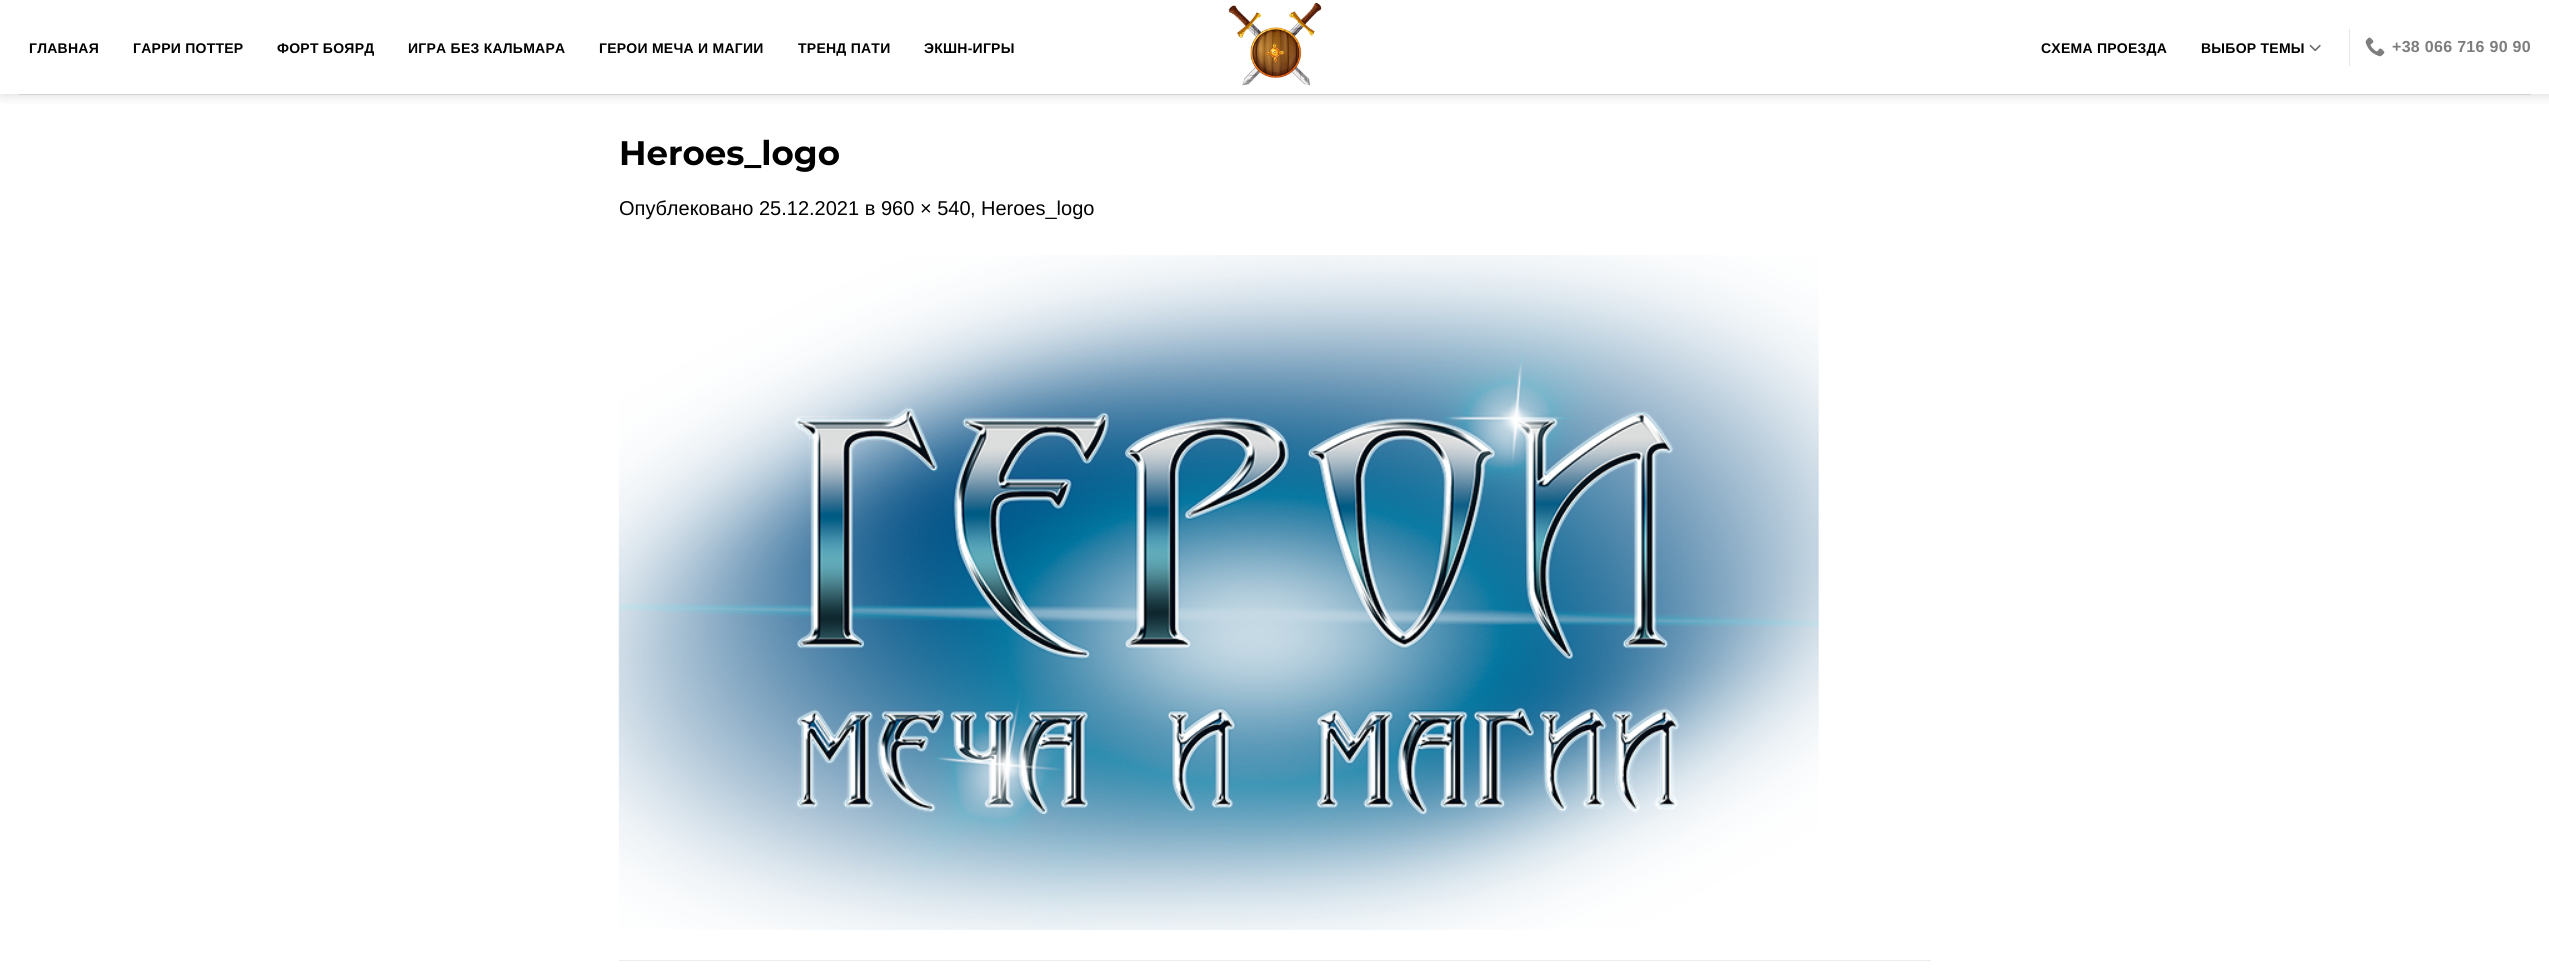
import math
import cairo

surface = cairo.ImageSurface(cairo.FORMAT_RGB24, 2549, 971)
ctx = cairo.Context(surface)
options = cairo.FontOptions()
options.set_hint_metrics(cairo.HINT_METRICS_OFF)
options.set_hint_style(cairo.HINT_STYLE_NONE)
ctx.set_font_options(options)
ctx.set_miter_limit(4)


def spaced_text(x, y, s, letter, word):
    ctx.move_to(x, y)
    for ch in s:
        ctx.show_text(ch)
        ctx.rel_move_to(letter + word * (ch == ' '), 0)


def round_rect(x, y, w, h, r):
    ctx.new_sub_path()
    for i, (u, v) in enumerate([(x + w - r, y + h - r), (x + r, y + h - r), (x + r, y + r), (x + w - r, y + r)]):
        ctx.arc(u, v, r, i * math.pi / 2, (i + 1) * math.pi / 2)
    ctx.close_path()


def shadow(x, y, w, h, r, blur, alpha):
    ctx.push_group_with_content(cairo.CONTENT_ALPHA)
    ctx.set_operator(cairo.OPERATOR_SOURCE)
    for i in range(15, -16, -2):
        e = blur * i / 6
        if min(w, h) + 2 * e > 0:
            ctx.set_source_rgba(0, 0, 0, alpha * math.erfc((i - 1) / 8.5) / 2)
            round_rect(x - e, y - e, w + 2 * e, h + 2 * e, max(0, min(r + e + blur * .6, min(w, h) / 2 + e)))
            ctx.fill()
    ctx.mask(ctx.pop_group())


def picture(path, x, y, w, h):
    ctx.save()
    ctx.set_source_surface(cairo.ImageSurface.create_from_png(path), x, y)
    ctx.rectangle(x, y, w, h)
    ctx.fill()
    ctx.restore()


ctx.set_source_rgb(1, 1, 1)
ctx.paint()
ctx.save()
ctx.set_fill_rule(cairo.FILL_RULE_EVEN_ODD)
ctx.new_path()
ctx.move_to(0, 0)
ctx.line_to(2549, 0)
ctx.line_to(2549, 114)
ctx.line_to(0, 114)
ctx.close_path()
ctx.move_to(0, 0)
ctx.line_to(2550, 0)
ctx.line_to(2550, 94)
ctx.line_to(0, 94)
ctx.close_path()
ctx.clip()
ctx.set_source_rgb(0, 0, 0)
shadow(1, 1, 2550, 94, 0, 6, 0.15)
ctx.restore()
ctx.select_font_face("Liberation Sans", cairo.FONT_SLANT_NORMAL, cairo.FONT_WEIGHT_BOLD)
ctx.set_font_size(14)
ctx.set_source_rgb(0, 0, 0)
spaced_text(29, 53, "ГЛАВНАЯ", 0.25, 0)
spaced_text(133, 53, "ГАРРИ ПОТТЕР", 0.25, 0)
spaced_text(277, 53, "ФОРТ БОЯРД", 0.25, 0)
spaced_text(408, 53, "ИГРА БЕЗ КАЛЬМАРА", 0.25, 0)
spaced_text(599, 53, "ГЕРОИ МЕЧА И МАГИИ", 0.25, 0)
spaced_text(798, 53, "ТРЕНД ПАТИ", 0.25, 0)
spaced_text(924, 53, "ЭКШН-ИГРЫ", 0.25, 0)
picture("img1.png", 1228, 3, 94, 83)
spaced_text(2041, 53, "СХЕМА ПРОЕЗДА", 0.25, 0)
spaced_text(2201, 53, "ВЫБОР ТЕМЫ", 0.25, 0)
picture("img2.png", 2309, 44, 12, 8)
ctx.set_source_rgb(0.902, 0.902, 0.902)
ctx.rectangle(2349, 29, 1, 37)
ctx.fill()
picture("img3.png", 2365, 37, 20, 20)
ctx.set_font_size(16)
ctx.set_source_rgb(0.49, 0.49, 0.49)
spaced_text(2392, 52, "+38 066 716 90 90", 0.3, 0)
ctx.set_source_rgb(0.827, 0.827, 0.827)
ctx.rectangle(19, 94, 2512, 1)
ctx.fill()
ctx.select_font_face("Montserrat", cairo.FONT_SLANT_NORMAL, cairo.FONT_WEIGHT_BOLD)
ctx.set_font_size(34)
ctx.set_source_rgb(0, 0, 0)
ctx.move_to(619, 165)
ctx.show_text("Heroes_logo")
ctx.select_font_face("Liberation Sans")
ctx.set_font_size(20)
ctx.move_to(619, 215)
ctx.show_text("Опублековано 25.12.2021 в")
ctx.move_to(881, 215)
ctx.show_text("960 × 540")
ctx.move_to(970, 215)
ctx.show_text(",")
ctx.move_to(981, 215)
ctx.show_text("Heroes_logo")
picture("img4.png", 618, 255, 1201, 675)
ctx.set_source_rgb(0.925, 0.925, 0.925)
ctx.rectangle(619, 960, 1312, 1)
ctx.fill()
surface.write_to_png("page.png")
